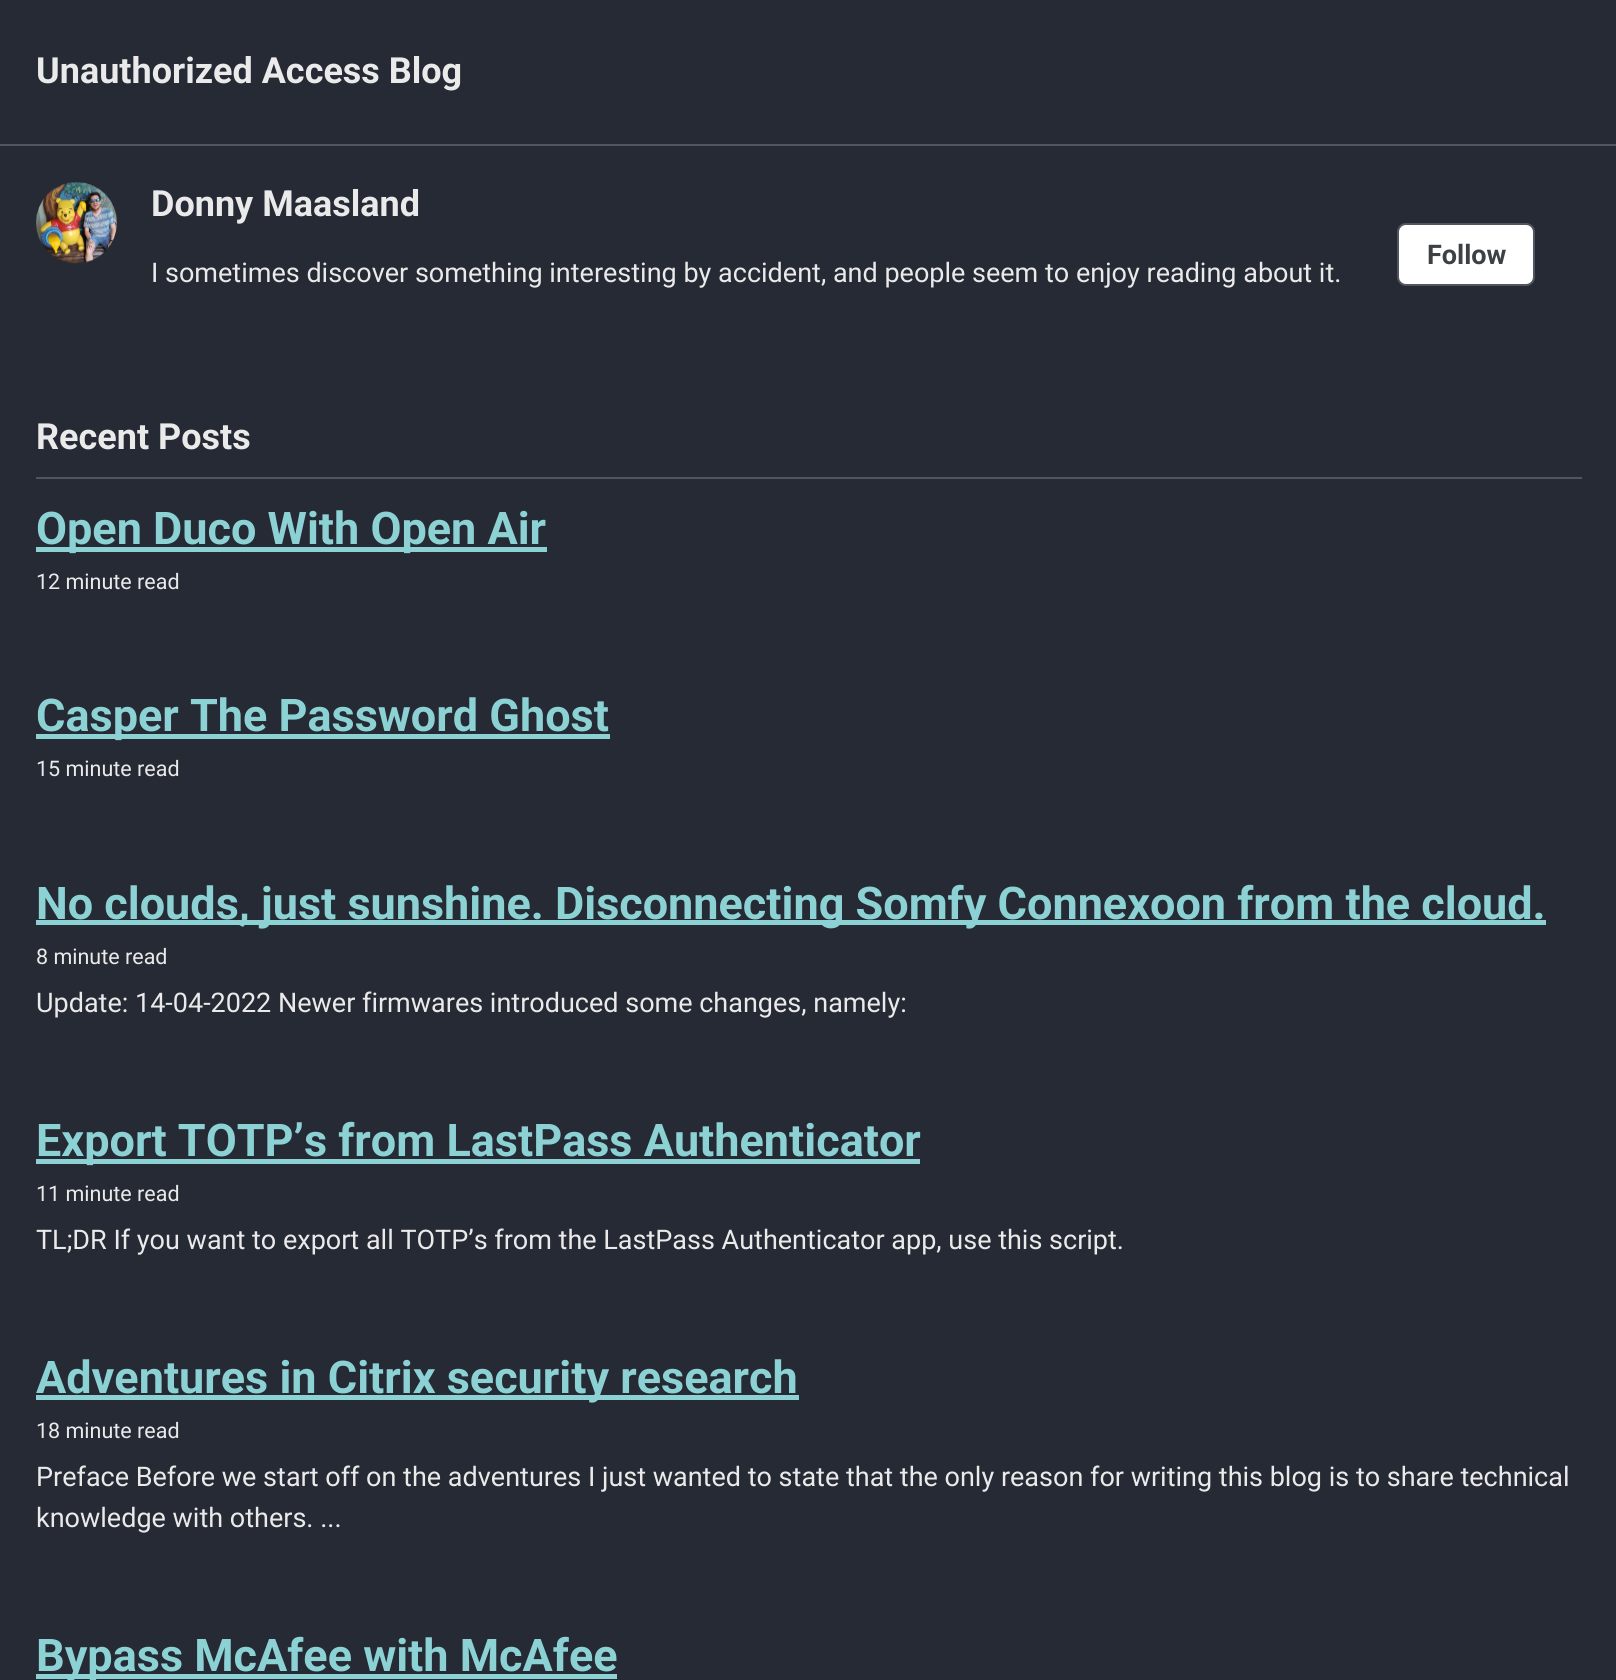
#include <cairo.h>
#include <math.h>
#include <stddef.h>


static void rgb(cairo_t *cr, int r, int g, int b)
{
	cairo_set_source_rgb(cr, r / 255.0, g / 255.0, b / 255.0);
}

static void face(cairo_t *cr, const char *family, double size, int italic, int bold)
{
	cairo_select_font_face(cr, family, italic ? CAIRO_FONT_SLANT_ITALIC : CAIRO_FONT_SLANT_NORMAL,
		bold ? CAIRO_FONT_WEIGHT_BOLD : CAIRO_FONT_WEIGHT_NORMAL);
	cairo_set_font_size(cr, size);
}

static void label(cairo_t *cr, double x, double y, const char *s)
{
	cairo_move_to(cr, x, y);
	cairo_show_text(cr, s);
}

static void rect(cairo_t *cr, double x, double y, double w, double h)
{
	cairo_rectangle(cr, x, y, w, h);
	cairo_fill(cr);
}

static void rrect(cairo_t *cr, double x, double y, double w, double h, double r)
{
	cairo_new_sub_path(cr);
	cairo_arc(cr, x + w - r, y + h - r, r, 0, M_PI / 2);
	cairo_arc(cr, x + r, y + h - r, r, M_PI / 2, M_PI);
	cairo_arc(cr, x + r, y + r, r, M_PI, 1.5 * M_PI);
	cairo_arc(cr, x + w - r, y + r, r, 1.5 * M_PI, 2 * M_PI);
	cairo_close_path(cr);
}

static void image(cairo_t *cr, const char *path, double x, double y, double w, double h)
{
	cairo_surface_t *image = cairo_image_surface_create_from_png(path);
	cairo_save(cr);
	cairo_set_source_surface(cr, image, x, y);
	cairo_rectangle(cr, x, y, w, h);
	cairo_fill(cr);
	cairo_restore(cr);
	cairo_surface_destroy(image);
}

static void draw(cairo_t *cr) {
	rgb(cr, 37, 42, 52);
	cairo_paint(cr);
	rgb(cr, 81, 85, 93);
	rect(cr, 0, 144, 1616, 2);
	face(cr, "Roboto", 36, 0, 1);
	rgb(cr, 234, 234, 234);
	label(cr, 36, 83, "Unauthorized Access Blog");
	image(cr, "image0.png", 36, 182, 81, 82);
	label(cr, 151, 216, "Donny Maasland");
	face(cr, "Roboto", 27, 0, 0);
	label(cr, 151, 282, "I sometimes discover something interesting by accident, and people seem to enjoy reading about it.");
	rgb(cr, 255, 255, 255);
	rrect(cr, 1398, 224, 136, 61, 8);
	cairo_fill_preserve(cr);
	rgb(cr, 81, 85, 93);
	cairo_stroke(cr);
	face(cr, "Roboto", 27, 0, 1);
	rgb(cr, 61, 65, 68);
	label(cr, 1427, 264, "Follow");
	rgb(cr, 81, 85, 93);
	rect(cr, 36, 477, 1546, 2);
	face(cr, "Roboto", 36, 0, 1);
	rgb(cr, 234, 234, 234);
	label(cr, 36, 449, "Recent Posts");
	rgb(cr, 140, 210, 213);
	rect(cr, 36, 547, 511, 5);
	face(cr, "Roboto", 45, 0, 1);
	label(cr, 36, 544, "Open Duco With Open Air");
	face(cr, "Roboto", 21.5, 0, 0);
	rgb(cr, 234, 234, 234);
	label(cr, 36, 589, "12 minute read");
	rgb(cr, 140, 210, 213);
	rect(cr, 36, 734, 574, 5);
	face(cr, "Roboto", 45, 0, 1);
	label(cr, 36, 731, "Casper The Password Ghost");
	face(cr, "Roboto", 21.5, 0, 0);
	rgb(cr, 234, 234, 234);
	label(cr, 36, 776, "15 minute read");
	rgb(cr, 140, 210, 213);
	rect(cr, 36, 920, 1510, 5);
	face(cr, "Roboto", 45, 0, 1);
	label(cr, 36, 919, "No clouds, just sunshine. Disconnecting Somfy Connexoon from the cloud.");
	face(cr, "Roboto", 21.5, 0, 0);
	rgb(cr, 234, 234, 234);
	label(cr, 36, 964, "8 minute read");
	face(cr, "Roboto", 27, 0, 0);
	label(cr, 36, 1012, "Update: 14-04-2022 Newer firmwares introduced some changes, namely:");
	rgb(cr, 140, 210, 213);
	rect(cr, 36, 1159, 884, 5);
	face(cr, "Roboto", 45, 0, 1);
	label(cr, 36, 1156, "Export TOTP’s from LastPass Authenticator");
	face(cr, "Roboto", 21.5, 0, 0);
	rgb(cr, 234, 234, 234);
	label(cr, 36, 1201, "11 minute read");
	face(cr, "Roboto", 27, 0, 0);
	label(cr, 36, 1249, "TL;DR If you want to export all TOTP’s from the LastPass Authenticator app, use this script.");
	rgb(cr, 140, 210, 213);
	rect(cr, 36, 1395, 763, 5);
	face(cr, "Roboto", 45, 0, 1);
	label(cr, 36, 1393, "Adventures in Citrix security research");
	face(cr, "Roboto", 21.5, 0, 0);
	rgb(cr, 234, 234, 234);
	label(cr, 36, 1438, "18 minute read");
	face(cr, "Roboto", 27, 0, 0);
	label(cr, 36, 1486, "Preface Before we start off on the adventures I just wanted to state that the only reason for writing this blog is to share technical");
	label(cr, 36, 1527, "knowledge with others. ...");
	rgb(cr, 140, 210, 213);
	rect(cr, 36, 1674, 581, 5);
	face(cr, "Roboto", 45, 0, 1);
	label(cr, 36, 1671, "Bypass McAfee with McAfee");
}

int main(void) {
	cairo_surface_t *surface = cairo_image_surface_create(CAIRO_FORMAT_RGB24, 1616, 1680);
	cairo_t *cr = cairo_create(surface);
	cairo_font_options_t *options = cairo_font_options_create();
	cairo_font_options_set_hint_metrics(options, CAIRO_HINT_METRICS_OFF);
	cairo_font_options_set_hint_style(options, CAIRO_HINT_STYLE_NONE);
	cairo_set_font_options(cr, options);
	cairo_set_miter_limit(cr, 4);
	draw(cr);
	cairo_surface_write_to_png(surface, "render.png");
	cairo_font_options_destroy(options);
	cairo_destroy(cr);
	cairo_surface_destroy(surface);
	return 0;
}
